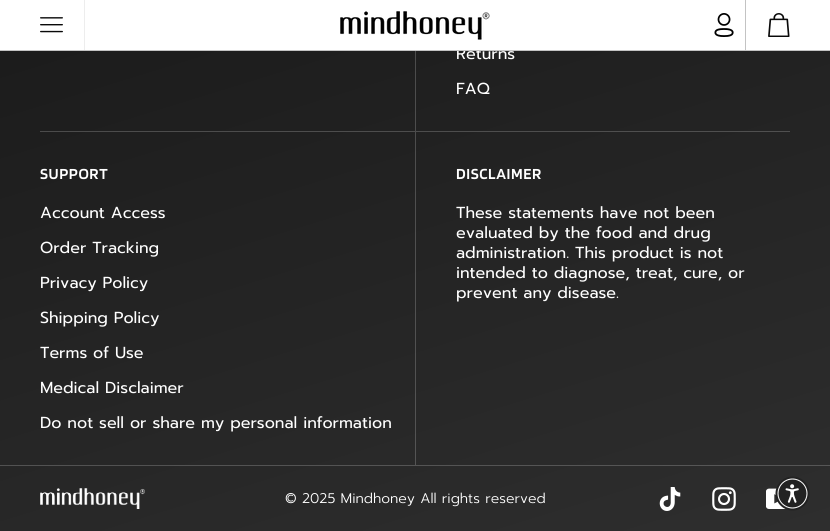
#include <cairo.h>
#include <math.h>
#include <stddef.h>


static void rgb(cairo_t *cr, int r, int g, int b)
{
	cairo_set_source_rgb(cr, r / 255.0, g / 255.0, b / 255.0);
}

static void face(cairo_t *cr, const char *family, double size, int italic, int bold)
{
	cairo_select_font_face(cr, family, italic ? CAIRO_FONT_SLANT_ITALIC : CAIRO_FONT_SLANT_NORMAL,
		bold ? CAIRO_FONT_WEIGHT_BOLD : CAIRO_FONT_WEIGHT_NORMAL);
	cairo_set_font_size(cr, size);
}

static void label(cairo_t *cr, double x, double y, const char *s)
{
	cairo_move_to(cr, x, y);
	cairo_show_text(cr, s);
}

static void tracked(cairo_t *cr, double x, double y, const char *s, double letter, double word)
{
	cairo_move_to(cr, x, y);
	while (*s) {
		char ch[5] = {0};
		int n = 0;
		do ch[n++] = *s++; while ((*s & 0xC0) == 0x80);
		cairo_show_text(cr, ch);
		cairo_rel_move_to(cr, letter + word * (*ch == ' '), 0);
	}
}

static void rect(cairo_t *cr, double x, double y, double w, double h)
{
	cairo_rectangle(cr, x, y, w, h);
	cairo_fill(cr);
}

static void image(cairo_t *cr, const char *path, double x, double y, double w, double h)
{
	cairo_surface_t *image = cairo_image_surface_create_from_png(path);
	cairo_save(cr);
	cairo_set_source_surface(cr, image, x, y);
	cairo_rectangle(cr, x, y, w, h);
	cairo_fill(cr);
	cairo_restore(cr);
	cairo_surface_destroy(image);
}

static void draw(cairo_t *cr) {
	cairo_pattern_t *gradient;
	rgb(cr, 255, 255, 255);
	cairo_paint(cr);
	gradient = cairo_pattern_create_linear(262, -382, 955, 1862);
	cairo_pattern_add_color_stop_rgba(gradient, 0.08, 0.094, 0.094, 0.094, 1);
	cairo_pattern_add_color_stop_rgba(gradient, 1, 0.314, 0.314, 0.314, 1);
	cairo_set_source(cr, gradient);
	cairo_pattern_destroy(gradient);
	rect(cr, 0, 51, 830, 480);
	face(cr, "Prompt", 16, 0, 0);
	rgb(cr, 255, 255, 255);
	label(cr, 456, 59, "Returns");
	rgb(cr, 195, 195, 195);
	rect(cr, 0, 50, 830, 1);
	rgb(cr, 237, 237, 237);
	rect(cr, 84, 0, 1, 50);
	image(cr, "image0.png", 40, 17, 23, 16);
	image(cr, "image1.png", 340, 11, 150, 29);
	rgb(cr, 195, 195, 195);
	rect(cr, 745, 0, 1, 50);
	image(cr, "image2.png", 714, 13, 20, 24);
	image(cr, "image3.png", 768, 13, 22, 24);
	gradient = cairo_pattern_create_linear(262, -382, 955, 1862);
	cairo_pattern_add_color_stop_rgba(gradient, 0.08, 0.275, 0.275, 0.275, 1);
	cairo_pattern_add_color_stop_rgba(gradient, 1, 0.451, 0.451, 0.451, 1);
	cairo_set_source(cr, gradient);
	cairo_pattern_destroy(gradient);
	rect(cr, 40, 131, 375, 1);
	rect(cr, 415, 51, 1, 80);
	rect(cr, 0, 465, 830, 1);
	rgb(cr, 255, 255, 255);
	label(cr, 456, 94, "FAQ");
	face(cr, "Blinker SemiBold", 16, 0, 0);
	tracked(cr, 40, 179, "SUPPORT", 0.6, 0);
	face(cr, "Prompt", 16, 0, 0);
	label(cr, 40, 218, "Account Access");
	label(cr, 40, 253, "Order Tracking");
	label(cr, 40, 288, "Privacy Policy");
	label(cr, 40, 323, "Shipping Policy");
	label(cr, 40, 358, "Terms of Use");
	label(cr, 40, 393, "Medical Disclaimer");
	label(cr, 40, 428, "Do not sell or share my personal information");
	cairo_set_source_rgba(cr, 1, 1, 1, 0.2);
	cairo_new_path(cr);
	cairo_move_to(cr, 415, 131);
	cairo_line_to(cr, 790, 131);
	cairo_line_to(cr, 790, 132);
	cairo_line_to(cr, 416, 132);
	cairo_close_path(cr);
	cairo_fill(cr);
	cairo_new_path(cr);
	cairo_move_to(cr, 415, 465);
	cairo_line_to(cr, 415, 131);
	cairo_line_to(cr, 416, 132);
	cairo_line_to(cr, 416, 465);
	cairo_close_path(cr);
	cairo_fill(cr);
	face(cr, "Blinker SemiBold", 16, 0, 0);
	rgb(cr, 255, 255, 255);
	tracked(cr, 456, 179, "DISCLAIMER", 0.6, 0);
	face(cr, "Prompt", 16, 0, 0);
	label(cr, 456, 218, "These statements have not been");
	label(cr, 456, 238, "evaluated by the food and drug");
	label(cr, 456, 258, "administration. This product is not");
	label(cr, 456, 278, "intended to diagnose, treat, cure, or");
	label(cr, 456, 298, "prevent any disease.");
	image(cr, "image4.png", 40, 488, 105, 21);
	face(cr, "Prompt Light", 14, 0, 0);
	label(cr, 285, 503, "© 2025 Mindhoney All rights reserved");
	image(cr, "image5.png", 659, 487, 22, 24);
	image(cr, "image6.png", 712, 487, 24, 24);
	image(cr, "image7.png", 766, 488, 20, 21);
	rgb(cr, 34, 34, 34);
	cairo_arc(cr, 792.5, 493.5, 17, 0, 2 * M_PI);
	cairo_fill(cr);
	rgb(cr, 255, 255, 255);
	cairo_arc(cr, 792.5, 493.5, 15, 0, 2 * M_PI);
	cairo_fill(cr);
	rgb(cr, 34, 34, 34);
	cairo_arc(cr, 792.5, 493.5, 14, 0, 2 * M_PI);
	cairo_fill(cr);
	image(cr, "image8.png", 785, 484, 14, 19);
}

int main(void) {
	cairo_surface_t *surface = cairo_image_surface_create(CAIRO_FORMAT_RGB24, 830, 531);
	cairo_t *cr = cairo_create(surface);
	cairo_font_options_t *options = cairo_font_options_create();
	cairo_font_options_set_hint_metrics(options, CAIRO_HINT_METRICS_OFF);
	cairo_font_options_set_hint_style(options, CAIRO_HINT_STYLE_NONE);
	cairo_set_font_options(cr, options);
	cairo_set_miter_limit(cr, 4);
	draw(cr);
	cairo_surface_write_to_png(surface, "render.png");
	cairo_font_options_destroy(options);
	cairo_destroy(cr);
	cairo_surface_destroy(surface);
	return 0;
}
